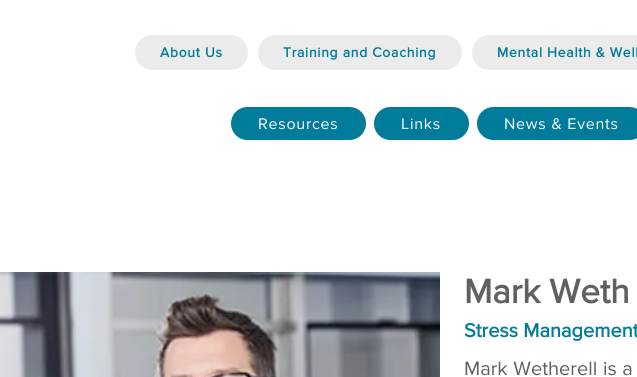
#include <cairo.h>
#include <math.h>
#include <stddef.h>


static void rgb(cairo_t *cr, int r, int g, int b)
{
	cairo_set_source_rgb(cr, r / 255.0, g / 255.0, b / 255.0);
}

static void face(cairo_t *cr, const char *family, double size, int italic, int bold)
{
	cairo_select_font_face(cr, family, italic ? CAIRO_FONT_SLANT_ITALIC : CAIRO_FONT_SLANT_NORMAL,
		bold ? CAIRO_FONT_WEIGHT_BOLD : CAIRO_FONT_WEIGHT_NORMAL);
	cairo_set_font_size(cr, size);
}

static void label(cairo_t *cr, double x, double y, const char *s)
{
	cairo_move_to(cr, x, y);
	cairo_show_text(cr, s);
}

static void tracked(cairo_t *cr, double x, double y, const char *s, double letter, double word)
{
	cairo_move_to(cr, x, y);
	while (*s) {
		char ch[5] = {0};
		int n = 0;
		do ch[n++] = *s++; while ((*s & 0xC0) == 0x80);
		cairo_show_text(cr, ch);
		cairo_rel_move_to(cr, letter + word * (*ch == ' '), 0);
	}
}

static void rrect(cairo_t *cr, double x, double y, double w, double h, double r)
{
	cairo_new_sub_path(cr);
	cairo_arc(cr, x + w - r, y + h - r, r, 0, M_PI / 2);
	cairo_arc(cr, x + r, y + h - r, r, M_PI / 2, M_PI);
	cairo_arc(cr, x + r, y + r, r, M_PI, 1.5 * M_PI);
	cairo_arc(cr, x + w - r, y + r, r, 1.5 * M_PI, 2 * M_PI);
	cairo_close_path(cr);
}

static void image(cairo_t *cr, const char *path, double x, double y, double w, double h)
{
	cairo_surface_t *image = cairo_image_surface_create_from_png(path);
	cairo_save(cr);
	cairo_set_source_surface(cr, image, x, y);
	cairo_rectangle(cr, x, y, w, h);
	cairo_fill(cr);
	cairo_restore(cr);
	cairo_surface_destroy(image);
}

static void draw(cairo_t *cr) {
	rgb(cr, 255, 255, 255);
	cairo_paint(cr);
	rgb(cr, 235, 235, 235);
	rrect(cr, 134.5, 34.5, 114, 36, 18);
	cairo_fill_preserve(cr);
	rgb(cr, 255, 255, 255);
	cairo_set_line_width(cr, 1);
	cairo_stroke(cr);
	face(cr, "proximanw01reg", 14, 0, 1);
	rgb(cr, 0, 123, 154);
	tracked(cr, 160, 57, "About Us", 0.7, 0);
	rgb(cr, 235, 235, 235);
	rrect(cr, 257.5, 34.5, 205, 36, 18);
	cairo_fill_preserve(cr);
	rgb(cr, 255, 255, 255);
	cairo_stroke(cr);
	rgb(cr, 0, 123, 154);
	tracked(cr, 283, 57, "Training and Coaching", 0.7, 0);
	rgb(cr, 235, 235, 235);
	rrect(cr, 471.5, 34.5, 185, 36, 18);
	cairo_fill_preserve(cr);
	rgb(cr, 255, 255, 255);
	cairo_stroke(cr);
	rgb(cr, 0, 123, 154);
	tracked(cr, 497, 57, "Mental Health & Well", 0.7, 0);
	rrect(cr, 231, 107, 135, 33, 16.5);
	cairo_fill(cr);
	face(cr, "proximanw01reg", 16, 0, 0);
	rgb(cr, 255, 255, 255);
	tracked(cr, 258, 129, "Resources", 0.75, 0);
	rgb(cr, 0, 123, 154);
	rrect(cr, 374, 107, 95, 33, 16.5);
	cairo_fill(cr);
	rgb(cr, 255, 255, 255);
	tracked(cr, 401, 129, "Links", 0.75, 0);
	rgb(cr, 0, 123, 154);
	rrect(cr, 477, 107, 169, 33, 16.5);
	cairo_fill(cr);
	rgb(cr, 255, 255, 255);
	tracked(cr, 504, 129, "News & Events", 0.75, 0);
	image(cr, "image0.png", 0, 272, 440, 105);
	face(cr, "proximanw01reg", 35, 0, 1);
	rgb(cr, 96, 96, 96);
	label(cr, 464, 303, "Mark Weth");
	face(cr, "proximanw01reg", 20, 0, 1);
	rgb(cr, 0, 123, 154);
	label(cr, 464, 337, "Stress Management");
	face(cr, "proximanw01reg", 20, 0, 0);
	rgb(cr, 96, 96, 96);
	tracked(cr, 464, 375, "Mark Wetherell is a", 0, 0.5);
}

int main(void) {
	cairo_surface_t *surface = cairo_image_surface_create(CAIRO_FORMAT_RGB24, 637, 377);
	cairo_t *cr = cairo_create(surface);
	cairo_font_options_t *options = cairo_font_options_create();
	cairo_font_options_set_hint_metrics(options, CAIRO_HINT_METRICS_OFF);
	cairo_font_options_set_hint_style(options, CAIRO_HINT_STYLE_NONE);
	cairo_set_font_options(cr, options);
	cairo_set_miter_limit(cr, 4);
	draw(cr);
	cairo_surface_write_to_png(surface, "render.png");
	cairo_font_options_destroy(options);
	cairo_destroy(cr);
	cairo_surface_destroy(surface);
	return 0;
}
